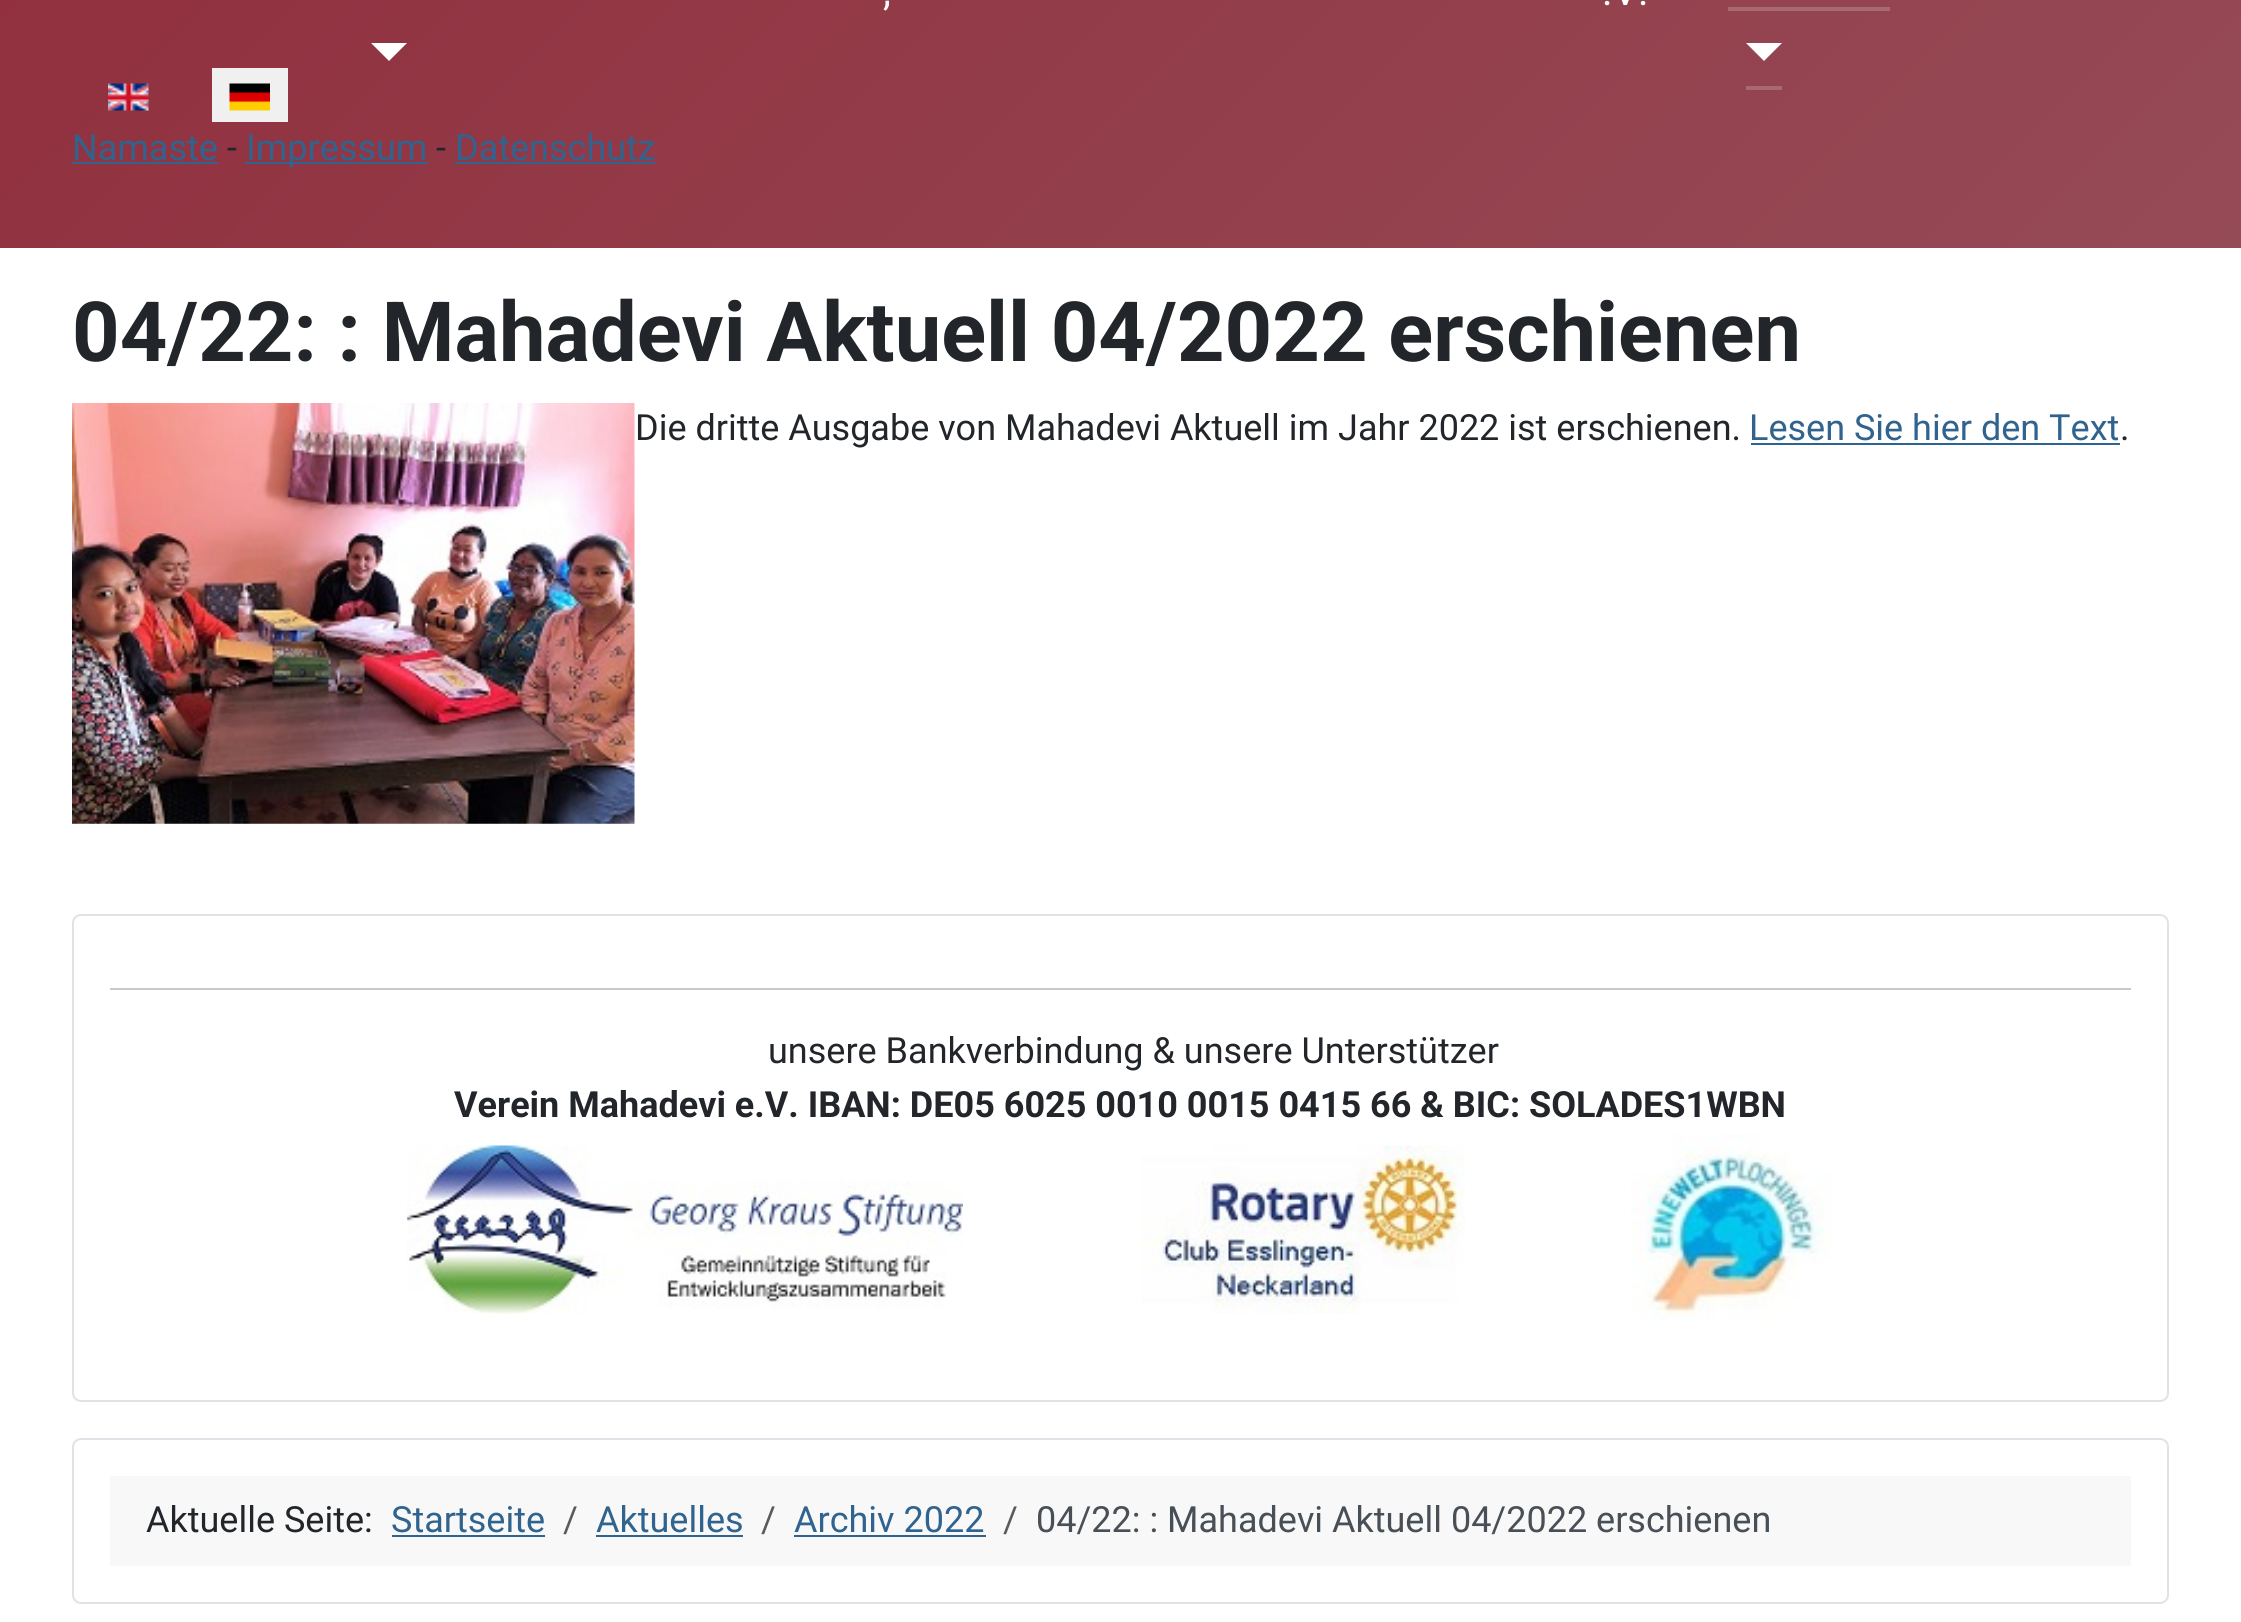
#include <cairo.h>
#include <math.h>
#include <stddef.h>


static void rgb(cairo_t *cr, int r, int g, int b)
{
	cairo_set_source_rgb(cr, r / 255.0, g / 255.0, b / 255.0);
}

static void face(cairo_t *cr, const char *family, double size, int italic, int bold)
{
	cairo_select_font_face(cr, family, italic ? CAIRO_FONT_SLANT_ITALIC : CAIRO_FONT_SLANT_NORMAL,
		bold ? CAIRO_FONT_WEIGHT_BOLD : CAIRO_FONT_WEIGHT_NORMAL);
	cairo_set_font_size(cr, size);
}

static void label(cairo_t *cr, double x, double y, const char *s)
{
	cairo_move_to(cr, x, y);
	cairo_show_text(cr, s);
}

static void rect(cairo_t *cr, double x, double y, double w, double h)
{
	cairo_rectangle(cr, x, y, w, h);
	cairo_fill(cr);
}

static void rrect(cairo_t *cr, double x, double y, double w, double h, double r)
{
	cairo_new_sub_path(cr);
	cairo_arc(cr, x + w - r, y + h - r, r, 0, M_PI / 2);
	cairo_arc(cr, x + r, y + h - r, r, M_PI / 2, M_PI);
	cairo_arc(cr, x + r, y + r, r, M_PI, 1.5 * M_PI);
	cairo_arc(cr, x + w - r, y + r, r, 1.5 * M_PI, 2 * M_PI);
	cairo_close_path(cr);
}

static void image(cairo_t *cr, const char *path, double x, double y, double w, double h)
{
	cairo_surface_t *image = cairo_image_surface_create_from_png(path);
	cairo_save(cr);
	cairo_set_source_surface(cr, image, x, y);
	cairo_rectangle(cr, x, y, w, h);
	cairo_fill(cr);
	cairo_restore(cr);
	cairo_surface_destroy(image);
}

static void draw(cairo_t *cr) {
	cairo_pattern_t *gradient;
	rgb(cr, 255, 255, 255);
	cairo_paint(cr);
	gradient = cairo_pattern_create_linear(379, -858, 1862, 626);
	cairo_pattern_add_color_stop_rgba(gradient, 0, 0.569, 0.169, 0.231, 1);
	cairo_pattern_add_color_stop_rgba(gradient, 1, 0.584, 0.294, 0.337, 1);
	cairo_set_source(cr, gradient);
	cairo_pattern_destroy(gradient);
	rect(cr, 0, 0, 2241, 248);
	face(cr, "Roboto", 40, 0, 0);
	rgb(cr, 255, 255, 255);
	label(cr, 883, 5, ",");
	label(cr, 1602, 5, ".V.");
	cairo_new_path(cr);
	cairo_move_to(cr, 371, 43);
	cairo_line_to(cr, 407, 43);
	cairo_line_to(cr, 389, 61);
	cairo_close_path(cr);
	cairo_fill(cr);
	rgb(cr, 169, 105, 115);
	rect(cr, 1728, 7, 162, 4);
	rgb(cr, 255, 255, 255);
	cairo_new_path(cr);
	cairo_move_to(cr, 1746, 43);
	cairo_line_to(cr, 1782, 43);
	cairo_line_to(cr, 1764, 61);
	cairo_close_path(cr);
	cairo_fill(cr);
	rgb(cr, 169, 105, 115);
	rect(cr, 1746, 86, 36, 4);
	image(cr, "image0.png", 108, 83, 41, 28);
	rgb(cr, 240, 240, 240);
	rect(cr, 212, 68, 76, 54);
	image(cr, "image1.png", 229, 83, 41, 28);
	face(cr, "Roboto", 36, 0, 0);
	rgb(cr, 48, 99, 141);
	label(cr, 72, 160, "Namaste");
	rect(cr, 72, 162, 146, 2);
	rgb(cr, 34, 38, 42);
	label(cr, 227, 160, "-");
	rgb(cr, 48, 99, 141);
	rect(cr, 245, 162, 183, 2);
	label(cr, 246, 160, "Impressum");
	rgb(cr, 34, 38, 42);
	label(cr, 436, 160, "-");
	rgb(cr, 48, 99, 141);
	label(cr, 455, 160, "Datenschutz");
	rect(cr, 455, 162, 200, 2);
	face(cr, "Roboto", 83.1, 0, 1);
	rgb(cr, 34, 38, 42);
	label(cr, 72, 361, "04/22: : Mahadevi Aktuell 04/2022 erschienen");
	image(cr, "image2.png", 72, 403, 563, 421);
	face(cr, "Roboto", 36, 0, 0);
	label(cr, 635, 440, "Die dritte Ausgabe von Mahadevi Aktuell im Jahr 2022 ist erschienen.");
	rgb(cr, 48, 99, 141);
	label(cr, 1749, 440, "Lesen Sie hier den Text");
	rect(cr, 1751, 443, 369, 2);
	rgb(cr, 34, 38, 42);
	label(cr, 2120, 440, ".");
	rrect(cr, 73, 915, 2095, 486, 8);
	rgb(cr, 223, 227, 231);
	cairo_stroke(cr);
	rgb(cr, 200, 201, 202);
	rect(cr, 110, 988, 2021, 2);
	rgb(cr, 34, 38, 42);
	label(cr, 768, 1063, "unsere Bankverbindung & unsere Unterstützer");
	face(cr, "Roboto", 36, 0, 1);
	label(cr, 454, 1117, "Verein Mahadevi e.V. IBAN: DE05 6025 0010 0015 0415 66 & BIC: SOLADES1WBN");
	image(cr, "image3.png", 407, 1145, 556, 169);
	image(cr, "image4.png", 1141, 1145, 324, 169);
	image(cr, "image5.png", 1631, 1134, 201, 187);
	rrect(cr, 73, 1439, 2095, 164, 8);
	rgb(cr, 223, 227, 231);
	cairo_stroke(cr);
	rgb(cr, 248, 248, 248);
	rect(cr, 110, 1476, 2021, 90);
	face(cr, "Roboto", 36, 0, 0);
	rgb(cr, 34, 38, 42);
	label(cr, 146, 1532, "Aktuelle Seite:");
	rgb(cr, 48, 99, 141);
	label(cr, 391, 1532, "Startseite");
	rect(cr, 392, 1535, 153, 2);
	rgb(cr, 88, 91, 94);
	label(cr, 563, 1532, "/");
	rgb(cr, 48, 99, 141);
	label(cr, 596, 1532, "Aktuelles");
	rect(cr, 596, 1535, 147, 2);
	rgb(cr, 88, 91, 94);
	label(cr, 761, 1532, "/");
	rgb(cr, 48, 99, 141);
	label(cr, 794, 1532, "Archiv 2022");
	rect(cr, 794, 1535, 192, 2);
	rgb(cr, 88, 91, 94);
	label(cr, 1003, 1532, "/");
	rgb(cr, 72, 79, 86);
	label(cr, 1036, 1532, "04/22: : Mahadevi Aktuell 04/2022 erschienen");
}

int main(void) {
	cairo_surface_t *surface = cairo_image_surface_create(CAIRO_FORMAT_RGB24, 2241, 1622);
	cairo_t *cr = cairo_create(surface);
	cairo_font_options_t *options = cairo_font_options_create();
	cairo_font_options_set_hint_metrics(options, CAIRO_HINT_METRICS_OFF);
	cairo_font_options_set_hint_style(options, CAIRO_HINT_STYLE_NONE);
	cairo_set_font_options(cr, options);
	cairo_set_miter_limit(cr, 4);
	draw(cr);
	cairo_surface_write_to_png(surface, "render.png");
	cairo_font_options_destroy(options);
	cairo_destroy(cr);
	cairo_surface_destroy(surface);
	return 0;
}
